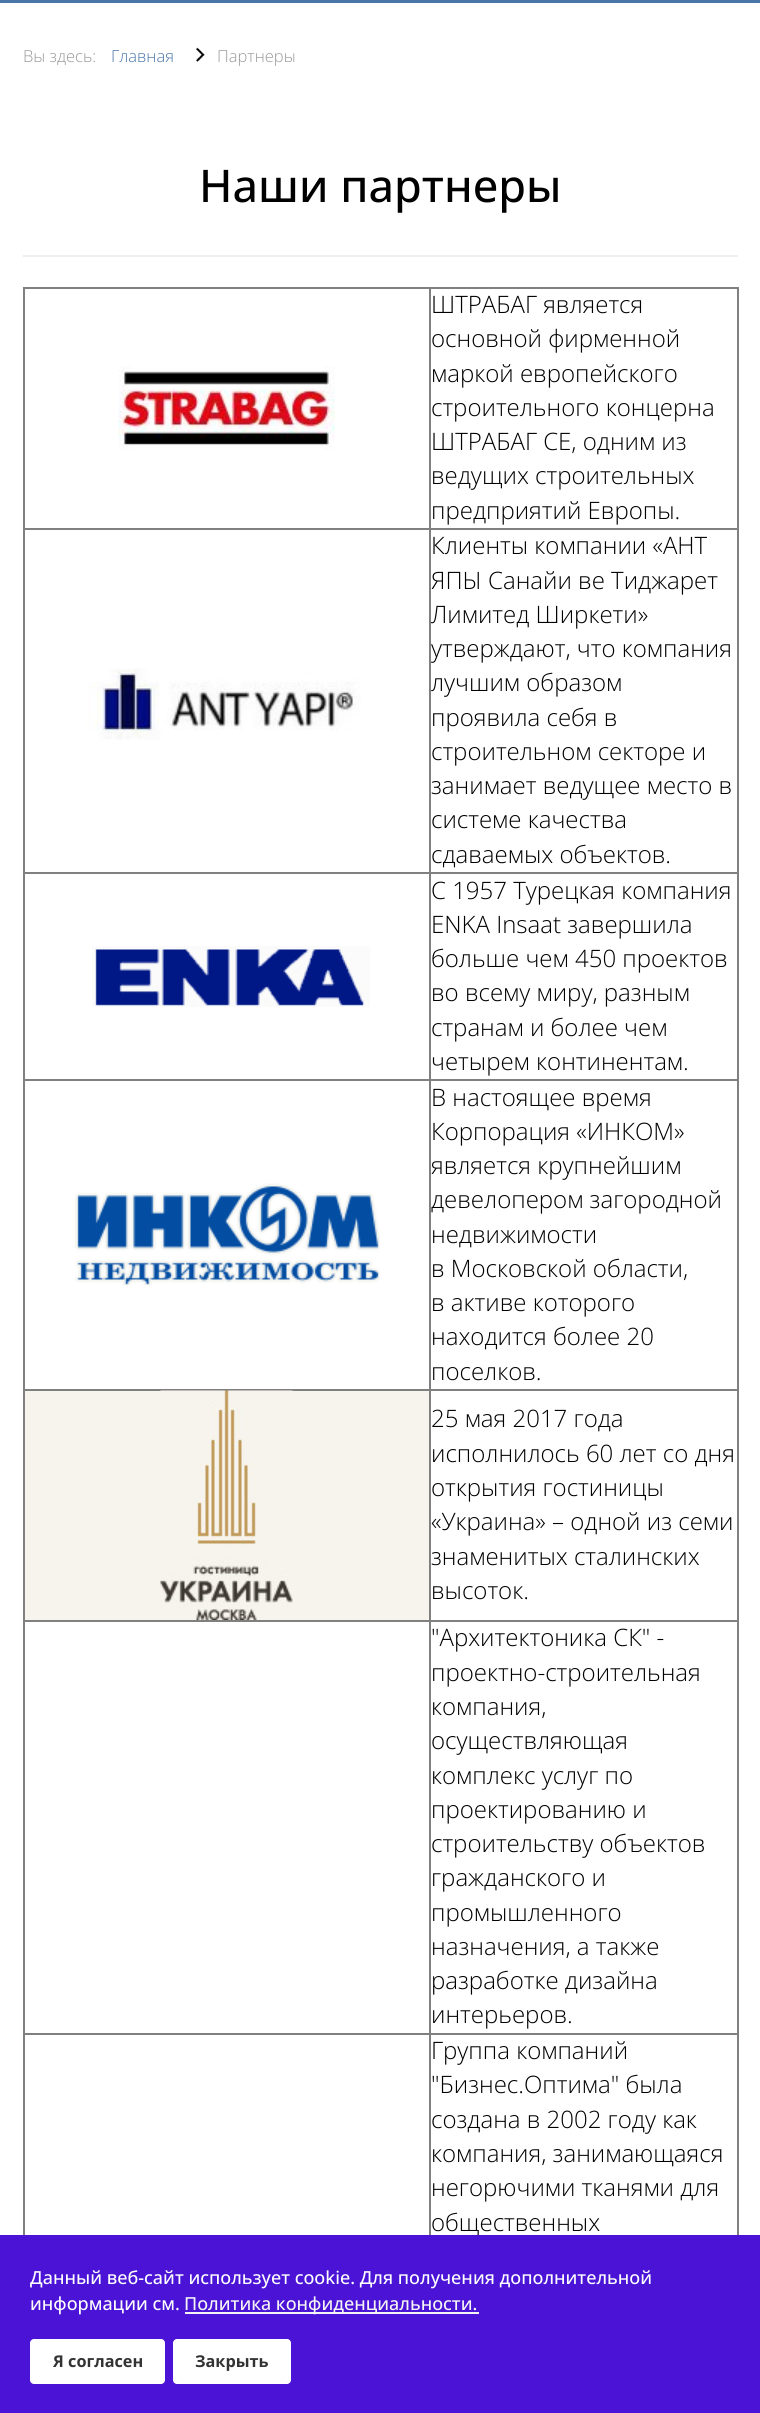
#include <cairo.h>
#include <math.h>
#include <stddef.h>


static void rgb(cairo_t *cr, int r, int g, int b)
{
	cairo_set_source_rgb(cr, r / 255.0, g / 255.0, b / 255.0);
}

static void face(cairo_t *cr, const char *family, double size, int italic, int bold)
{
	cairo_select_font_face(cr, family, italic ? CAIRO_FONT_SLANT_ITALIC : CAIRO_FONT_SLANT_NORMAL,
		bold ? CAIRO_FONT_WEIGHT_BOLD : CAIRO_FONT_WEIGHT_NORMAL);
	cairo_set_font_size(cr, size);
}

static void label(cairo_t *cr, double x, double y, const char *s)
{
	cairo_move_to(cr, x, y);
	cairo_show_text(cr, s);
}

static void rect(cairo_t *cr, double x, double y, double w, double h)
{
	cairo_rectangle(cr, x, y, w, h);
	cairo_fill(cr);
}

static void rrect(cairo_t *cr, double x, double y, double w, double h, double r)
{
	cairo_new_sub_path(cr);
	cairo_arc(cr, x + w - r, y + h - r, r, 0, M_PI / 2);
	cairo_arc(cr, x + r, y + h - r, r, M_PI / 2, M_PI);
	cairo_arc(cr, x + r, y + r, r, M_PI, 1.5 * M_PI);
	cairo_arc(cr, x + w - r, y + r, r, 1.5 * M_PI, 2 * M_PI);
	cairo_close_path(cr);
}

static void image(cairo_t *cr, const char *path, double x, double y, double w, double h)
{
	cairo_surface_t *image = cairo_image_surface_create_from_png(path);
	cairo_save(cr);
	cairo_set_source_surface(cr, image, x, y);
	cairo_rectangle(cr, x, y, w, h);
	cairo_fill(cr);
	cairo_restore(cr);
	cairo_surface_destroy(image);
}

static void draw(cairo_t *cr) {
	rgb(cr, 255, 255, 255);
	cairo_paint(cr);
	rgb(cr, 74, 118, 168);
	rect(cr, 0, 0, 760, 3);
	face(cr, "Open Sans Light", 16.5, 0, 0);
	rgb(cr, 153, 153, 153);
	label(cr, 23, 62, "Вы здесь:");
	image(cr, "image0.png", 196, 47, 9, 15);
	rgb(cr, 74, 118, 168);
	label(cr, 111, 62, "Главная");
	rgb(cr, 153, 153, 153);
	label(cr, 217, 62, "Партнеры");
	rgb(cr, 238, 238, 238);
	rect(cr, 23, 255, 715, 2);
	face(cr, "Open Sans Medium", 45, 0, 0);
	rgb(cr, 0, 0, 0);
	label(cr, 199, 202, "Наши партнеры");
	rgb(cr, 128, 128, 128);
	rect(cr, 23, 287, 715, 2);
	rect(cr, 737, 287, 2, 1948);
	rect(cr, 23, 287, 2, 1948);
	image(cr, "image1.png", 118, 366, 217, 84);
	rect(cr, 429, 528, 309, 2);
	rect(cr, 429, 872, 309, 2);
	rect(cr, 429, 1079, 309, 2);
	rect(cr, 429, 1389, 309, 2);
	rect(cr, 429, 1620, 309, 2);
	rect(cr, 429, 2033, 309, 2);
	rect(cr, 429, 2033, 2, 202);
	rect(cr, 23, 2033, 408, 2);
	rect(cr, 429, 1620, 2, 414);
	rect(cr, 23, 1620, 408, 2);
	rect(cr, 429, 1389, 2, 233);
	rect(cr, 23, 1389, 408, 2);
	rect(cr, 429, 1079, 2, 312);
	rect(cr, 23, 1079, 408, 2);
	rect(cr, 429, 872, 2, 208);
	rect(cr, 23, 872, 408, 2);
	rect(cr, 429, 528, 2, 345);
	rect(cr, 23, 528, 408, 2);
	rect(cr, 429, 287, 2, 243);
	face(cr, "Open Sans Light", 24, 0, 0);
	rgb(cr, 0, 0, 0);
	label(cr, 431, 313, "ШТРАБАГ является");
	label(cr, 431, 347, "основной фирменной");
	label(cr, 431, 382, "маркой европейского");
	label(cr, 431, 416, "строительного концерна");
	label(cr, 431, 450, "ШТРАБАГ СЕ, одним из");
	label(cr, 431, 484, "ведущих строительных");
	label(cr, 431, 519, "предприятий Европы.");
	image(cr, "image2.png", 87, 668, 274, 72);
	label(cr, 431, 554, "Клиенты компании «АНТ");
	label(cr, 431, 589, "ЯПЫ Санайи ве Тиджарет");
	label(cr, 431, 623, "Лимитед Ширкети»");
	label(cr, 431, 657, "утверждают, что компания");
	label(cr, 431, 691, "лучшим образом");
	label(cr, 431, 726, "проявила себя в");
	label(cr, 431, 760, "строительном секторе и");
	label(cr, 431, 794, "занимает ведущее место в");
	label(cr, 431, 828, "системе качества");
	label(cr, 431, 863, "сдаваемых объектов.");
	image(cr, "image3.png", 92, 946, 278, 61);
	label(cr, 431, 899, "С 1957 Турецкая компания");
	label(cr, 431, 933, "ENKA Insaat завершила");
	label(cr, 431, 967, "больше чем 450 проектов");
	label(cr, 431, 1001, "во всему миру, разным");
	label(cr, 431, 1036, "странам и более чем");
	label(cr, 431, 1070, "четырем континентам.");
	image(cr, "image4.png", 75, 1183, 305, 103);
	label(cr, 431, 1106, "В настоящее время");
	label(cr, 431, 1140, "Корпорация «ИНКОМ»");
	label(cr, 431, 1174, "является крупнейшим");
	label(cr, 431, 1208, "девелопером загородной");
	label(cr, 431, 1243, "недвижимости");
	label(cr, 431, 1277, "в Московской области,");
	label(cr, 431, 1311, "в активе которого");
	label(cr, 431, 1345, "находится более 20");
	label(cr, 431, 1380, "поселков.");
	rgb(cr, 247, 244, 237);
	rect(cr, 25, 1391, 404, 229);
	image(cr, "image5.png", 160, 1390, 133, 230);
	rgb(cr, 0, 0, 0);
	label(cr, 431, 1427, "25 мая 2017 года");
	label(cr, 431, 1462, "исполнилось 60 лет со дня");
	label(cr, 431, 1496, "открытия гостиницы");
	label(cr, 431, 1530, "«Украина» – одной из семи");
	label(cr, 431, 1565, "знаменитых сталинских");
	label(cr, 431, 1599, "высоток.");
	label(cr, 431, 1646, "\"Архитектоника СК\" -");
	label(cr, 431, 1681, "проектно-строительная");
	label(cr, 431, 1715, "компания,");
	label(cr, 431, 1749, "осуществляющая");
	label(cr, 431, 1784, "комплекс услуг по");
	label(cr, 431, 1818, "проектированию и");
	label(cr, 431, 1852, "строительству объектов");
	label(cr, 431, 1886, "гражданского и");
	label(cr, 431, 1921, "промышленного");
	label(cr, 431, 1955, "назначения, а также");
	label(cr, 431, 1989, "разработке дизайна");
	label(cr, 431, 2023, "интерьеров.");
	label(cr, 431, 2059, "Группа компаний");
	label(cr, 431, 2093, "\"Бизнес.Оптима\" была");
	label(cr, 431, 2128, "создана в 2002 году как");
	label(cr, 431, 2162, "компания, занимающаяся");
	label(cr, 431, 2196, "негорючими тканями для");
	label(cr, 431, 2231, "общественных");
	rgb(cr, 74, 19, 214);
	rect(cr, 0, 2235, 760, 178);
	face(cr, "Open Sans Medium", 18, 0, 0);
	rgb(cr, 255, 255, 255);
	label(cr, 30, 2284, "Данный веб-сайт использует cookie. Для получения дополнительной");
	label(cr, 30, 2310, "информации см.");
	rgb(cr, 245, 245, 245);
	rect(cr, 185, 2312, 294, 2);
	label(cr, 184, 2310, "Политика конфиденциальности.");
	rgb(cr, 255, 255, 255);
	rrect(cr, 30, 2339, 135, 45, 4);
	cairo_fill(cr);
	face(cr, "Open Sans", 16.25, 0, 1);
	rgb(cr, 51, 51, 51);
	label(cr, 53, 2367, "Я согласен");
	rgb(cr, 255, 255, 255);
	rrect(cr, 173, 2339, 118, 45, 4);
	cairo_fill(cr);
	rgb(cr, 51, 51, 51);
	label(cr, 195, 2367, "Закрыть");
}

int main(void) {
	cairo_surface_t *surface = cairo_image_surface_create(CAIRO_FORMAT_RGB24, 760, 2413);
	cairo_t *cr = cairo_create(surface);
	cairo_font_options_t *options = cairo_font_options_create();
	cairo_font_options_set_hint_metrics(options, CAIRO_HINT_METRICS_OFF);
	cairo_font_options_set_hint_style(options, CAIRO_HINT_STYLE_NONE);
	cairo_set_font_options(cr, options);
	cairo_set_miter_limit(cr, 4);
	draw(cr);
	cairo_surface_write_to_png(surface, "render.png");
	cairo_font_options_destroy(options);
	cairo_destroy(cr);
	cairo_surface_destroy(surface);
	return 0;
}
